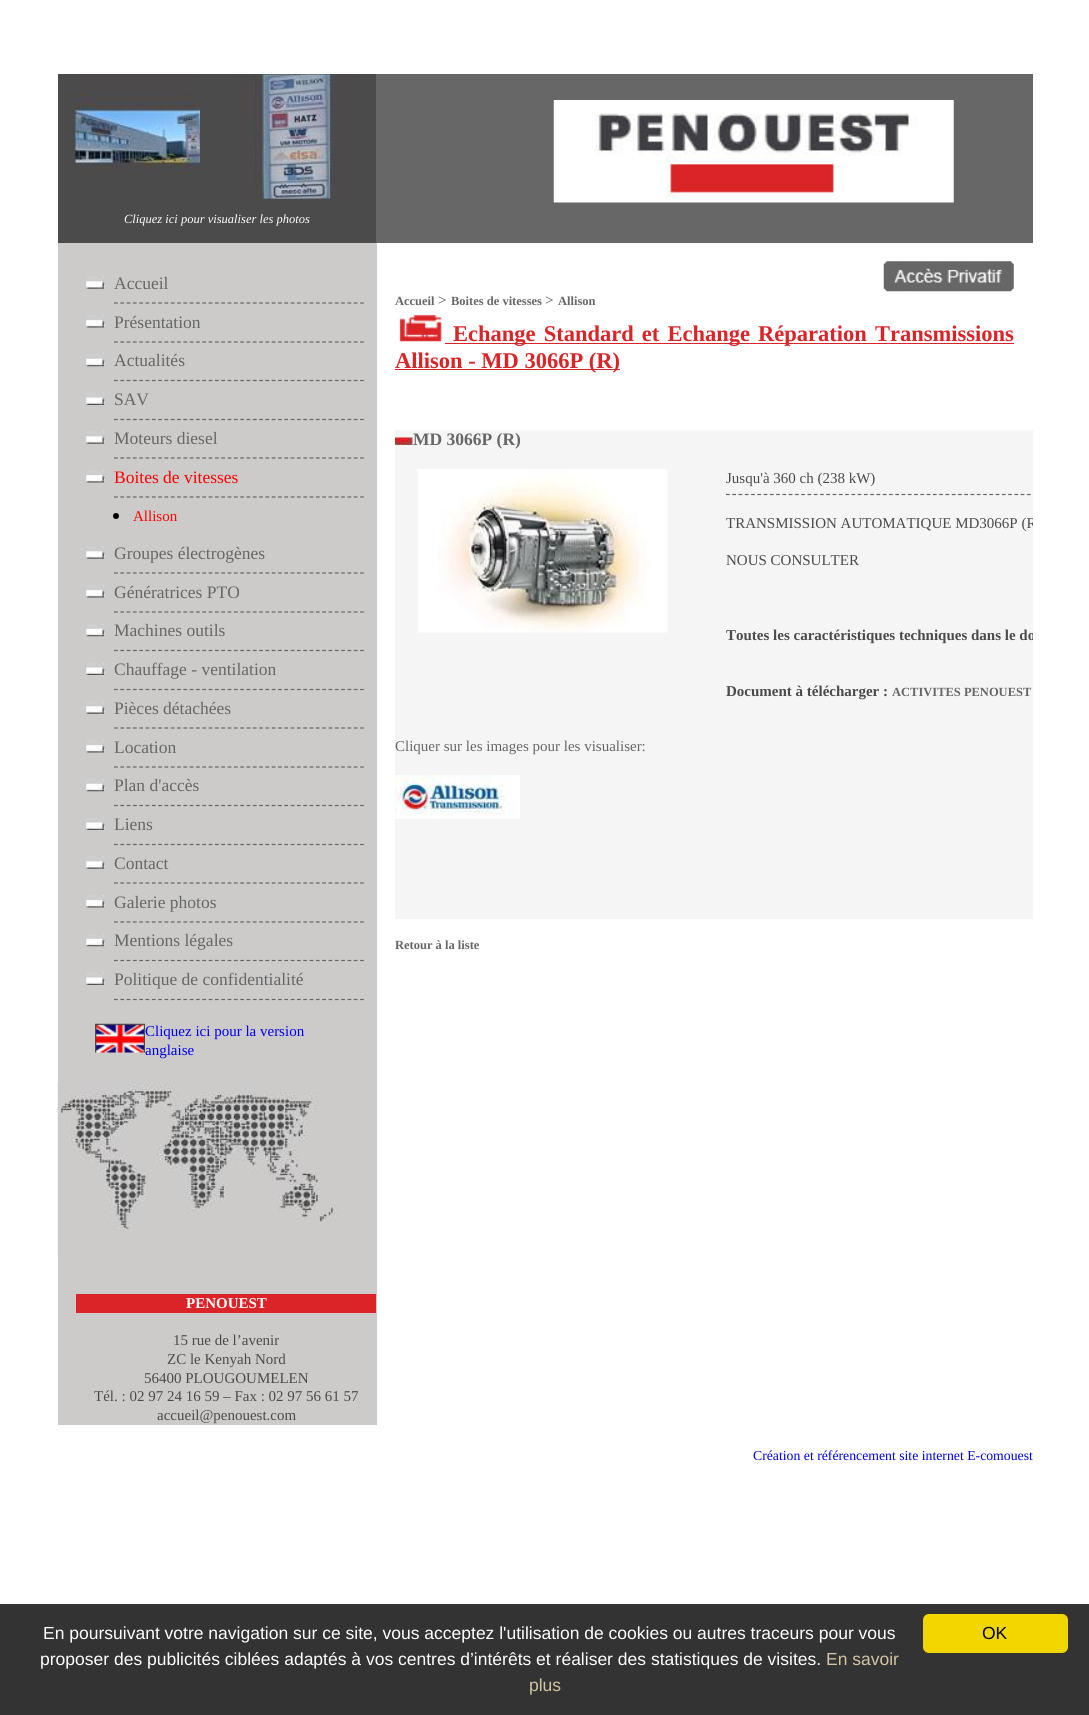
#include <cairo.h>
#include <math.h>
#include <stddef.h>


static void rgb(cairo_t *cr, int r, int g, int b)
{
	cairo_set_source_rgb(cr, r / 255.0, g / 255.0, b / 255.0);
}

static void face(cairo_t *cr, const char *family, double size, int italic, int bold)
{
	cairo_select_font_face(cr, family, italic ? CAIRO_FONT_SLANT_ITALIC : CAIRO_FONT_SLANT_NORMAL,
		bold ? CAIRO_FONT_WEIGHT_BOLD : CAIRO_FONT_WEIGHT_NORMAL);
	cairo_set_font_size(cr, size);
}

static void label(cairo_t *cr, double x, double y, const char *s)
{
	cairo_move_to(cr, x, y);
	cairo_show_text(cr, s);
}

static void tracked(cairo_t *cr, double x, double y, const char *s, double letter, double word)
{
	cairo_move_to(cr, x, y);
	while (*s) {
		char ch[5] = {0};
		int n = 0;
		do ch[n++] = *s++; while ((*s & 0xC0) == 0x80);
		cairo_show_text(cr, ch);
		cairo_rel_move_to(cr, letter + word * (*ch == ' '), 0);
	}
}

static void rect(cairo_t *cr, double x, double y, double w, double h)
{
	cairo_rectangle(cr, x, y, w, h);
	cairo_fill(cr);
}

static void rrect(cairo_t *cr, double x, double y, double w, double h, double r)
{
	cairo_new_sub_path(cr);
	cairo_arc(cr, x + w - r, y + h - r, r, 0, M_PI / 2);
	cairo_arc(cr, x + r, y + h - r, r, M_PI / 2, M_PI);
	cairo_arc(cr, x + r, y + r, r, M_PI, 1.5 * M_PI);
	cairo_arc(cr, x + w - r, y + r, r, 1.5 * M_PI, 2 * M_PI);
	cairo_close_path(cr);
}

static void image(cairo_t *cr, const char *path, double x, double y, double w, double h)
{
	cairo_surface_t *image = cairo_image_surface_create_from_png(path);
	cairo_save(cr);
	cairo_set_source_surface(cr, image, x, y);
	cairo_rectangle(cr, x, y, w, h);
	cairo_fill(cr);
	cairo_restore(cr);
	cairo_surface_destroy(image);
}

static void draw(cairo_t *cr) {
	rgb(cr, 255, 255, 255);
	cairo_paint(cr);
	rgb(cr, 103, 103, 103);
	rect(cr, 376, 74, 657, 169);
	image(cr, "image0.png", 553, 100, 401, 103);
	rgb(cr, 204, 203, 201);
	rect(cr, 376, 243, 1, 1182);
	rgb(cr, 204, 203, 202);
	rect(cr, 58, 243, 318, 1182);
	rgb(cr, 76, 75, 75);
	rect(cr, 58, 74, 318, 169);
	image(cr, "image1.png", 75, 74, 125, 101);
	image(cr, "image2.png", 234, 74, 125, 125);
	face(cr, "Liberation Serif", 12.5, 1, 0);
	rgb(cr, 255, 255, 255);
	label(cr, 124, 223, "Cliquez ici pour visualiser les photos");
	cairo_new_path(cr);
	cairo_move_to(cr, 114, 303);
	cairo_line_to(cr, 364, 303);
	rgb(cr, 103, 103, 103);
	cairo_set_line_width(cr, 1.2);
	cairo_set_dash(cr, (double[]){3.75, 2.56}, 2, 0);
	cairo_stroke(cr);
	image(cr, "image3.png", 86, 276, 19, 13);
	face(cr, "Liberation Serif", 17.5, 0, 0);
	label(cr, 114, 289, "Accueil");
	cairo_new_path(cr);
	cairo_move_to(cr, 114, 342);
	cairo_line_to(cr, 364, 342);
	cairo_stroke(cr);
	image(cr, "image4.png", 86, 315, 19, 13);
	label(cr, 114, 328, "Présentation");
	cairo_new_path(cr);
	cairo_move_to(cr, 114, 380.5);
	cairo_line_to(cr, 364, 380.5);
	cairo_stroke(cr);
	image(cr, "image5.png", 86, 354, 19, 13);
	label(cr, 114, 366, "Actualités");
	cairo_new_path(cr);
	cairo_move_to(cr, 114, 419.5);
	cairo_line_to(cr, 364, 419.5);
	cairo_stroke(cr);
	image(cr, "image6.png", 86, 392, 19, 13);
	label(cr, 114, 405, "SAV");
	cairo_new_path(cr);
	cairo_move_to(cr, 114, 458);
	cairo_line_to(cr, 364, 458);
	cairo_stroke(cr);
	image(cr, "image3.png", 86, 431, 19, 13);
	label(cr, 114, 444, "Moteurs diesel");
	cairo_new_path(cr);
	cairo_move_to(cr, 114, 497);
	cairo_line_to(cr, 364, 497);
	cairo_stroke(cr);
	image(cr, "image4.png", 86, 470, 19, 13);
	rgb(cr, 255, 0, 0);
	label(cr, 114, 483, "Boites de vitesses");
	rgb(cr, 0, 0, 0);
	cairo_new_path(cr);
	cairo_arc(cr, 116, 516, 3, 0, 2 * M_PI);
	cairo_fill(cr);
	face(cr, "Liberation Serif", 15, 0, 0);
	rgb(cr, 255, 0, 0);
	label(cr, 133, 521, "Allison");
	cairo_new_path(cr);
	cairo_move_to(cr, 114, 573);
	cairo_line_to(cr, 364, 573);
	rgb(cr, 103, 103, 103);
	cairo_stroke(cr);
	image(cr, "image3.png", 86, 546, 19, 13);
	face(cr, "Liberation Serif", 17.5, 0, 0);
	label(cr, 114, 559, "Groupes électrogènes");
	cairo_new_path(cr);
	cairo_move_to(cr, 114, 612);
	cairo_line_to(cr, 364, 612);
	cairo_stroke(cr);
	image(cr, "image7.png", 86, 585, 19, 13);
	label(cr, 114, 598, "Génératrices PTO");
	cairo_new_path(cr);
	cairo_move_to(cr, 114, 650.5);
	cairo_line_to(cr, 364, 650.5);
	cairo_stroke(cr);
	image(cr, "image5.png", 86, 624, 19, 13);
	label(cr, 114, 636, "Machines outils");
	cairo_new_path(cr);
	cairo_move_to(cr, 114, 689.5);
	cairo_line_to(cr, 364, 689.5);
	cairo_stroke(cr);
	image(cr, "image6.png", 86, 662, 19, 13);
	label(cr, 114, 675, "Chauffage - ventilation");
	cairo_new_path(cr);
	cairo_move_to(cr, 114, 728);
	cairo_line_to(cr, 364, 728);
	cairo_stroke(cr);
	image(cr, "image3.png", 86, 701, 19, 13);
	label(cr, 114, 714, "Pièces détachées");
	cairo_new_path(cr);
	cairo_move_to(cr, 114, 767);
	cairo_line_to(cr, 364, 767);
	cairo_stroke(cr);
	image(cr, "image4.png", 86, 740, 19, 13);
	label(cr, 114, 753, "Location");
	cairo_new_path(cr);
	cairo_move_to(cr, 114, 805.5);
	cairo_line_to(cr, 364, 805.5);
	cairo_stroke(cr);
	image(cr, "image8.png", 86, 779, 19, 13);
	label(cr, 114, 791, "Plan d'accès");
	cairo_new_path(cr);
	cairo_move_to(cr, 114, 844.5);
	cairo_line_to(cr, 364, 844.5);
	cairo_stroke(cr);
	image(cr, "image6.png", 86, 817, 19, 13);
	label(cr, 114, 830, "Liens");
	cairo_new_path(cr);
	cairo_move_to(cr, 114, 883);
	cairo_line_to(cr, 364, 883);
	cairo_stroke(cr);
	image(cr, "image3.png", 86, 856, 19, 13);
	label(cr, 114, 869, "Contact");
	cairo_new_path(cr);
	cairo_move_to(cr, 114, 922);
	cairo_line_to(cr, 364, 922);
	cairo_stroke(cr);
	image(cr, "image4.png", 86, 895, 19, 13);
	label(cr, 114, 908, "Galerie photos");
	cairo_new_path(cr);
	cairo_move_to(cr, 114, 960.5);
	cairo_line_to(cr, 364, 960.5);
	cairo_stroke(cr);
	image(cr, "image5.png", 86, 934, 19, 13);
	label(cr, 114, 946, "Mentions légales");
	cairo_new_path(cr);
	cairo_move_to(cr, 114, 999.5);
	cairo_line_to(cr, 364, 999.5);
	cairo_stroke(cr);
	image(cr, "image6.png", 86, 972, 19, 13);
	label(cr, 114, 985, "Politique de confidentialité");
	image(cr, "image9.png", 95, 1023, 50, 30);
	face(cr, "Liberation Serif", 15, 0, 0);
	rgb(cr, 0, 0, 238);
	label(cr, 145, 1036, "Cliquez ici pour la version");
	label(cr, 145, 1055, "anglaise");
	image(cr, "image10.png", 57, 1082, 281, 174);
	rgb(cr, 218, 36, 39);
	rect(cr, 76, 1294, 300, 19);
	face(cr, "Liberation Serif", 15, 0, 1);
	rgb(cr, 255, 255, 255);
	label(cr, 186, 1308, "PENOUEST");
	face(cr, "Liberation Serif", 15, 0, 0);
	rgb(cr, 76, 75, 75);
	label(cr, 173, 1345, "15 rue de l’avenir");
	label(cr, 167, 1364, "ZC le Kenyah Nord");
	label(cr, 144, 1383, "56400 PLOUGOUMELEN");
	label(cr, 94, 1401, "Tél. : 02 97 24 16 59 – Fax : 02 97 56 61 57");
	label(cr, 157, 1420, "accueil@penouest.com");
	image(cr, "image11.png", 883, 261, 131, 31);
	face(cr, "Liberation Serif", 12.5, 0, 1);
	rgb(cr, 103, 103, 103);
	label(cr, 395, 305, "Accueil");
	face(cr, "Liberation Serif", 15, 0, 0);
	rgb(cr, 76, 75, 75);
	label(cr, 438, 305, ">");
	face(cr, "Liberation Serif", 12.5, 0, 1);
	rgb(cr, 103, 103, 103);
	label(cr, 451, 305, "Boites de vitesses");
	face(cr, "Liberation Serif", 15, 0, 0);
	rgb(cr, 76, 75, 75);
	label(cr, 545, 305, ">");
	face(cr, "Liberation Serif", 12.5, 0, 1);
	rgb(cr, 103, 103, 103);
	label(cr, 558, 305, "Allison");
	image(cr, "image12.png", 395, 310, 50, 32);
	rgb(cr, 218, 36, 39);
	rect(cr, 445, 343, 569, 1);
	face(cr, "Liberation Serif", 22.5, 0, 1);
	tracked(cr, 453, 341, "Echange Standard et Echange Réparation Transmissions", 0, 2.5);
	rect(cr, 395, 369, 225, 1);
	label(cr, 395, 368, "Allison - MD 3066P (R)");
	rgb(cr, 245, 245, 245);
	rect(cr, 395, 430, 638, 489);
	image(cr, "image13.png", 395, 437, 18, 8);
	face(cr, "Liberation Serif", 17.5, 0, 1);
	rgb(cr, 103, 103, 103);
	label(cr, 413, 445, "MD 3066P (R)");
	cairo_save(cr);
	cairo_rectangle(cr, 58, 74, 975, 1351);
	cairo_clip(cr);
	cairo_new_path(cr);
	cairo_move_to(cr, 726, 494.5);
	cairo_line_to(cr, 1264, 494.5);
	cairo_set_dash(cr, (double[]){3.75, 2.52}, 2, 0);
	cairo_stroke(cr);
	cairo_restore(cr);
	face(cr, "Liberation Serif", 15, 0, 0);
	rgb(cr, 76, 75, 75);
	label(cr, 726, 483, "Jusqu'à 360 ch (238 kW)");
	cairo_save(cr);
	cairo_rectangle(cr, 58, 74, 975, 1351);
	cairo_clip(cr);
	label(cr, 726, 528, "TRANSMISSION AUTOMATIQUE MD3066P (R");
	cairo_restore(cr);
	label(cr, 726, 565, "NOUS CONSULTER");
	cairo_save(cr);
	cairo_rectangle(cr, 58, 74, 975, 1351);
	cairo_clip(cr);
	face(cr, "Liberation Serif", 15, 0, 1);
	label(cr, 726, 640, "Toutes les caractéristiques techniques dans le do");
	cairo_restore(cr);
	face(cr, "Liberation Serif", 15, 0, 1);
	label(cr, 726, 696, "Document à télécharger :");
	face(cr, "Liberation Serif", 12.5, 0, 1);
	rgb(cr, 103, 103, 103);
	label(cr, 892, 696, "ACTIVITES PENOUEST");
	image(cr, "image14.png", 417, 469, 251, 164);
	face(cr, "Liberation Serif", 15, 0, 0);
	label(cr, 395, 751, "Cliquer sur les images pour les visualiser:");
	image(cr, "image15.png", 395, 775, 125, 44);
	face(cr, "Liberation Serif", 12.5, 0, 1);
	label(cr, 395, 949, "Retour à la liste");
	face(cr, "Liberation Serif", 13.75, 0, 0);
	rgb(cr, 0, 0, 238);
	label(cr, 753, 1460, "Création et référencement site internet E-comouest");
	rgb(cr, 51, 51, 51);
	rect(cr, 0, 1604, 1089, 111);
	face(cr, "Liberation Sans", 17.5, 0, 0);
	rgb(cr, 255, 255, 255);
	label(cr, 43, 1639, "En poursuivant votre navigation sur ce site, vous acceptez l'utilisation de cookies ou autres traceurs pour vous");
	label(cr, 40, 1665, "proposer des publicités ciblées adaptés à vos centres d’intérêts et réaliser des statistiques de visites.");
	rgb(cr, 210, 197, 163);
	label(cr, 826, 1665, "En savoir");
	label(cr, 529, 1691, "plus");
	rgb(cr, 241, 214, 0);
	rrect(cr, 923, 1614, 145, 39, 6);
	cairo_fill(cr);
	rgb(cr, 0, 0, 0);
	label(cr, 982, 1639, "OK");
}

int main(void) {
	cairo_surface_t *surface = cairo_image_surface_create(CAIRO_FORMAT_RGB24, 1089, 1715);
	cairo_t *cr = cairo_create(surface);
	cairo_font_options_t *options = cairo_font_options_create();
	cairo_font_options_set_hint_metrics(options, CAIRO_HINT_METRICS_OFF);
	cairo_font_options_set_hint_style(options, CAIRO_HINT_STYLE_NONE);
	cairo_set_font_options(cr, options);
	cairo_set_miter_limit(cr, 4);
	draw(cr);
	cairo_surface_write_to_png(surface, "render.png");
	cairo_font_options_destroy(options);
	cairo_destroy(cr);
	cairo_surface_destroy(surface);
	return 0;
}
